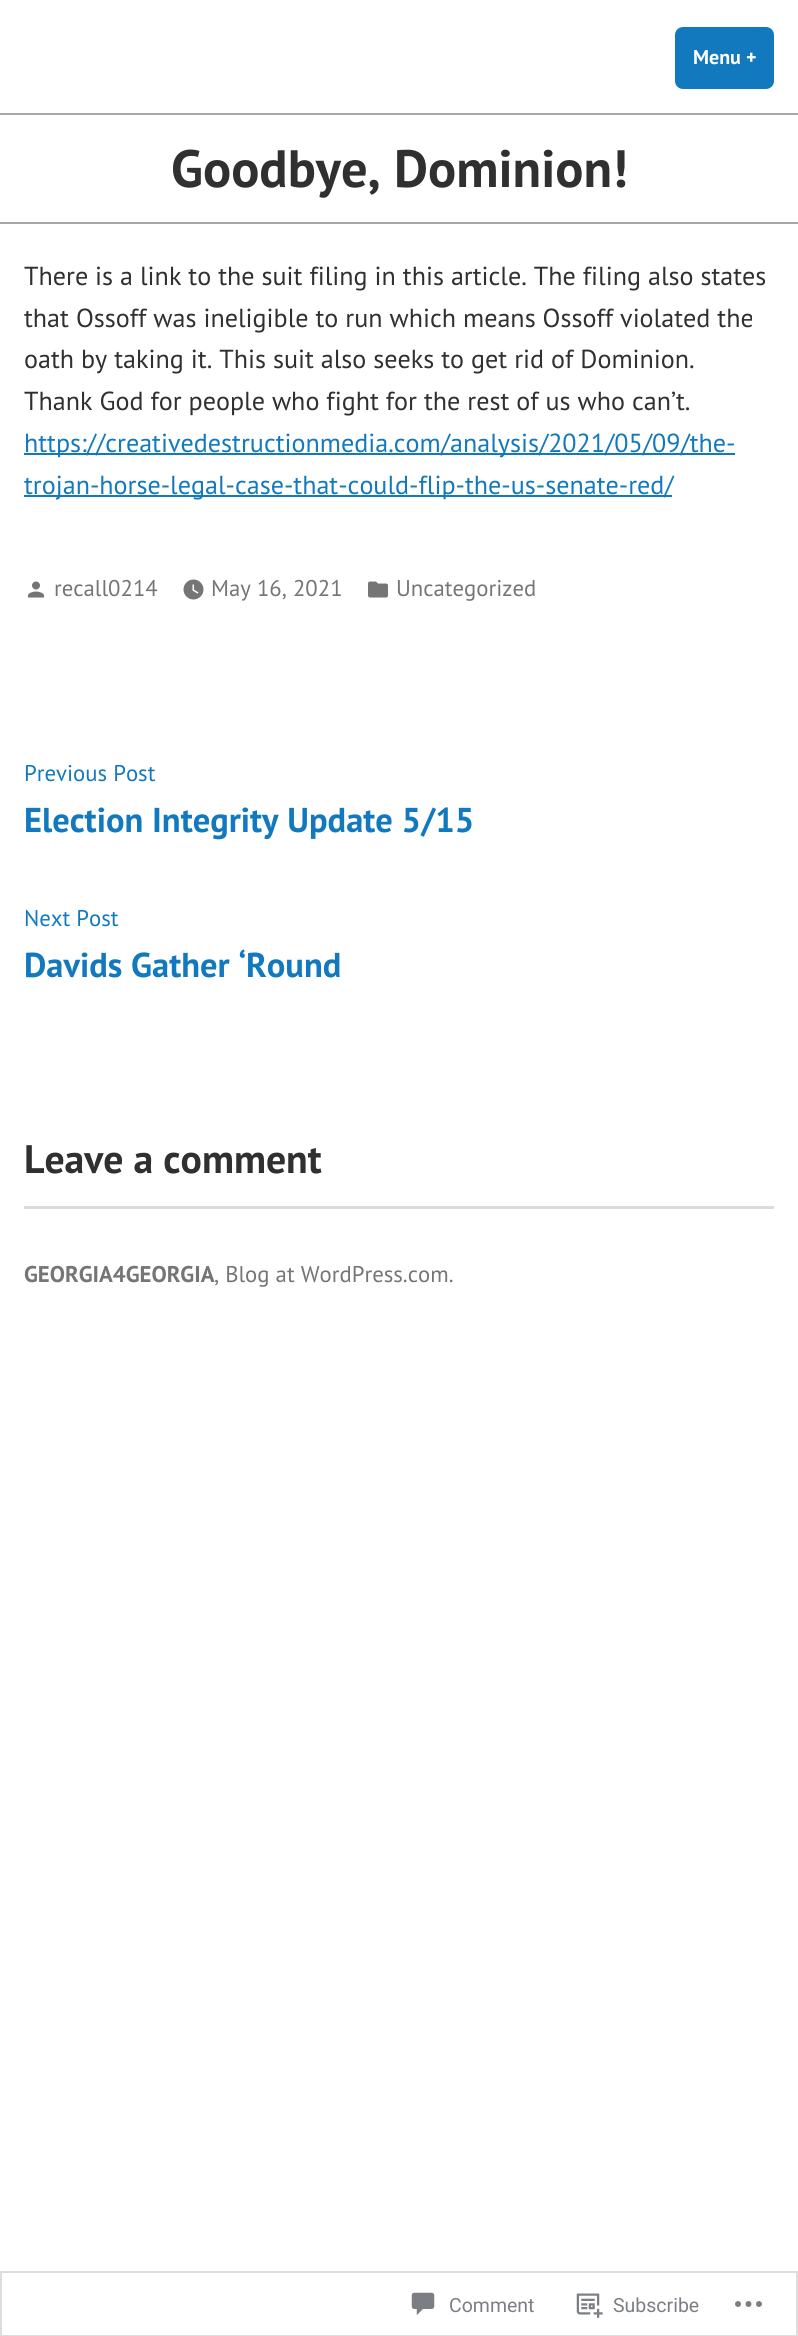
#include <cairo.h>
#include <math.h>
#include <stddef.h>


static void rgb(cairo_t *cr, int r, int g, int b)
{
	cairo_set_source_rgb(cr, r / 255.0, g / 255.0, b / 255.0);
}

static void face(cairo_t *cr, const char *family, double size, int italic, int bold)
{
	cairo_select_font_face(cr, family, italic ? CAIRO_FONT_SLANT_ITALIC : CAIRO_FONT_SLANT_NORMAL,
		bold ? CAIRO_FONT_WEIGHT_BOLD : CAIRO_FONT_WEIGHT_NORMAL);
	cairo_set_font_size(cr, size);
}

static void label(cairo_t *cr, double x, double y, const char *s)
{
	cairo_move_to(cr, x, y);
	cairo_show_text(cr, s);
}

static void rect(cairo_t *cr, double x, double y, double w, double h)
{
	cairo_rectangle(cr, x, y, w, h);
	cairo_fill(cr);
}

static void rrect(cairo_t *cr, double x, double y, double w, double h, double r)
{
	cairo_new_sub_path(cr);
	cairo_arc(cr, x + w - r, y + h - r, r, 0, M_PI / 2);
	cairo_arc(cr, x + r, y + h - r, r, M_PI / 2, M_PI);
	cairo_arc(cr, x + r, y + r, r, M_PI, 1.5 * M_PI);
	cairo_arc(cr, x + w - r, y + r, r, 1.5 * M_PI, 2 * M_PI);
	cairo_close_path(cr);
}

static void image(cairo_t *cr, const char *path, double x, double y, double w, double h)
{
	cairo_surface_t *image = cairo_image_surface_create_from_png(path);
	cairo_save(cr);
	cairo_set_source_surface(cr, image, x, y);
	cairo_rectangle(cr, x, y, w, h);
	cairo_fill(cr);
	cairo_restore(cr);
	cairo_surface_destroy(image);
}

static void draw(cairo_t *cr) {
	rgb(cr, 255, 255, 255);
	cairo_paint(cr);
	rgb(cr, 18, 121, 190);
	rrect(cr, 675, 27, 99, 62, 8);
	cairo_fill(cr);
	face(cr, "PT Sans", 20, 0, 1);
	rgb(cr, 255, 255, 255);
	label(cr, 693, 64, "Menu +");
	rgb(cr, 165, 165, 165);
	rect(cr, 0, 113, 798, 2);
	face(cr, "PT Sans", 52.5, 0, 1);
	rgb(cr, 48, 48, 48);
	label(cr, 171, 187, "Goodbye, Dominion!");
	rgb(cr, 165, 165, 165);
	rect(cr, 0, 222, 798, 2);
	face(cr, "PT Sans", 26.1, 0, 0);
	rgb(cr, 48, 48, 48);
	label(cr, 24, 285, "There is a link to the suit filing in this article. The filing also states");
	label(cr, 24, 327, "that Ossoff was ineligible to run which means Ossoff violated the");
	label(cr, 24, 368, "oath by taking it. This suit also seeks to get rid of Dominion.");
	label(cr, 24, 410, "Thank God for people who fight for the rest of us who can’t.");
	rgb(cr, 18, 121, 190);
	rect(cr, 24, 453, 711, 2);
	label(cr, 24, 452, "https://creativedestructionmedia.com/analysis/2021/05/09/the-");
	rect(cr, 24, 495, 648, 2);
	label(cr, 24, 494, "trojan-horse-legal-case-that-could-flip-the-us-senate-red/");
	image(cr, "image0.png", 28, 581, 16, 17);
	face(cr, "PT Sans", 22.75, 0, 0);
	rgb(cr, 117, 117, 117);
	label(cr, 54, 596, "recall0214");
	image(cr, "image1.png", 183, 579, 21, 21);
	label(cr, 211, 596, "May 16, 2021");
	image(cr, "image2.png", 368, 581, 20, 17);
	label(cr, 396, 596, "Uncategorized");
	rgb(cr, 18, 121, 190);
	label(cr, 24, 781, "Previous Post");
	face(cr, "PT Sans", 34.5, 0, 1);
	label(cr, 24, 832, "Election Integrity Update 5/15");
	face(cr, "PT Sans", 22.75, 0, 0);
	label(cr, 24, 926, "Next Post");
	face(cr, "PT Sans", 34.5, 0, 1);
	label(cr, 24, 977, "Davids Gather ‘Round");
	face(cr, "PT Sans", 39.75, 0, 1);
	rgb(cr, 48, 48, 48);
	label(cr, 24, 1173, "Leave a comment");
	rgb(cr, 220, 220, 222);
	rect(cr, 24, 1206, 750, 3);
	face(cr, "PT Sans", 22.75, 0, 1);
	rgb(cr, 117, 117, 117);
	label(cr, 24, 1282, "GEORGIA4GEORGIA");
	face(cr, "PT Sans", 22.75, 0, 0);
	label(cr, 214, 1282, ", Blog at WordPress.com.");
	cairo_rectangle(cr, 1, 2272, 796, 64);
	rgb(cr, 221, 221, 223);
	cairo_stroke(cr);
	image(cr, "image3.png", 411, 2292, 24, 24);
	face(cr, "Roboto", 19.5, 0, 0);
	rgb(cr, 123, 127, 133);
	label(cr, 449, 2312, "Comment");
	image(cr, "image4.png", 576, 2293, 27, 25);
	label(cr, 613, 2312, "Subscribe");
	image(cr, "image5.png", 735, 2301, 27, 6);
}

int main(void) {
	cairo_surface_t *surface = cairo_image_surface_create(CAIRO_FORMAT_RGB24, 798, 2336);
	cairo_t *cr = cairo_create(surface);
	cairo_font_options_t *options = cairo_font_options_create();
	cairo_font_options_set_hint_metrics(options, CAIRO_HINT_METRICS_OFF);
	cairo_font_options_set_hint_style(options, CAIRO_HINT_STYLE_NONE);
	cairo_set_font_options(cr, options);
	cairo_set_miter_limit(cr, 4);
	draw(cr);
	cairo_surface_write_to_png(surface, "render.png");
	cairo_font_options_destroy(options);
	cairo_destroy(cr);
	cairo_surface_destroy(surface);
	return 0;
}
